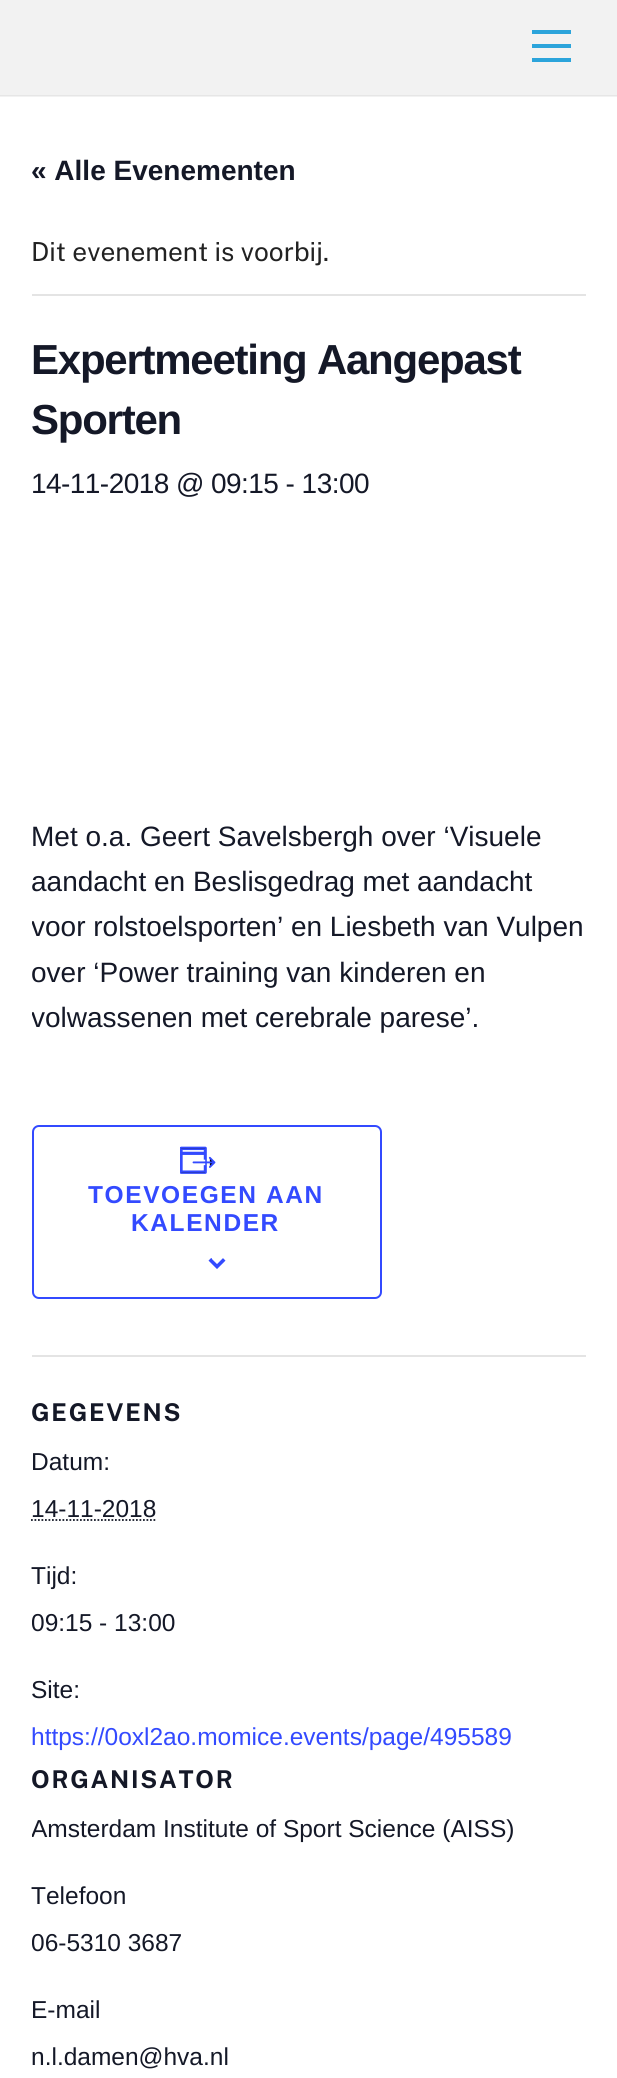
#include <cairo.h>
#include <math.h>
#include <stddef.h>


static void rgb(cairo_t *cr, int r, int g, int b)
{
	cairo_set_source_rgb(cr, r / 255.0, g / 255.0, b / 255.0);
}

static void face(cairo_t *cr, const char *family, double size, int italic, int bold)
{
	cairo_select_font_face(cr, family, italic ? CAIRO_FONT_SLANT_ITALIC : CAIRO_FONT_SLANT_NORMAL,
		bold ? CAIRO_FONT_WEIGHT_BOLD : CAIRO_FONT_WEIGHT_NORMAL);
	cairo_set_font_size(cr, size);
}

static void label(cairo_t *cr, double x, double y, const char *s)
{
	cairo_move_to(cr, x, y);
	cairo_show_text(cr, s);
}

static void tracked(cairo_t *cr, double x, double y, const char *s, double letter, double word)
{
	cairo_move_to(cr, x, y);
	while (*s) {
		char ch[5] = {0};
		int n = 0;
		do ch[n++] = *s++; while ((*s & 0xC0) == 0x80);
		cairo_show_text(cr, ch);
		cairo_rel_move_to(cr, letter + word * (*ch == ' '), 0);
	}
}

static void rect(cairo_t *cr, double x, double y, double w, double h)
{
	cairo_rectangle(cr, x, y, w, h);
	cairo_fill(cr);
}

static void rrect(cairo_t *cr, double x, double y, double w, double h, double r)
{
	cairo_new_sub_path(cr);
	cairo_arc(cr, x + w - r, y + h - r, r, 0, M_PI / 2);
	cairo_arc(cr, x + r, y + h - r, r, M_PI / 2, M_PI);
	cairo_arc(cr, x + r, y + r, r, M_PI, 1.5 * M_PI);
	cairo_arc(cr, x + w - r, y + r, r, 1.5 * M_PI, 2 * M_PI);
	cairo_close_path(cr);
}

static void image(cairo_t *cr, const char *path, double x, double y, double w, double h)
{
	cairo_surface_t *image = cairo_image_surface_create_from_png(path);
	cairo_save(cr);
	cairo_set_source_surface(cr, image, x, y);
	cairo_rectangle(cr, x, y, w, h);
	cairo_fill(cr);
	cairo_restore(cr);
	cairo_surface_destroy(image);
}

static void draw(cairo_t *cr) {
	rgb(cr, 255, 255, 255);
	cairo_paint(cr);
	rgb(cr, 242, 242, 242);
	rect(cr, 0, 96, 617, 1);
	rect(cr, 0, 0, 617, 95);
	rgb(cr, 230, 230, 230);
	rect(cr, 0, 95, 617, 1);
	rgb(cr, 44, 164, 219);
	rect(cr, 532, 58, 39, 4);
	rect(cr, 532, 30, 39, 4);
	rect(cr, 532, 44, 39, 4);
	face(cr, "Liberation Sans", 28, 0, 1);
	rgb(cr, 20, 24, 39);
	label(cr, 31, 180, "« Alle Evenementen");
	rgb(cr, 228, 228, 228);
	rect(cr, 32, 294, 554, 2);
	face(cr, "Public Sans", 26.25, 0, 0);
	rgb(cr, 34, 34, 34);
	label(cr, 31, 261, "Dit evenement is voorbij.");
	face(cr, "Liberation Sans", 42, 0, 1);
	rgb(cr, 20, 24, 39);
	tracked(cr, 31, 374, "Expertmeeting Aangepast", -1.25, 0);
	tracked(cr, 31, 434, "Sporten", -1.25, 0);
	face(cr, "Liberation Sans", 28, 0, 0);
	tracked(cr, 31, 493, "14-11-2018 @ 09:15 - 13:00", -0.55, 0);
	label(cr, 31, 846, "Met o.a. Geert Savelsbergh over ‘Visuele");
	label(cr, 31, 891, "aandacht en Beslisgedrag met aandacht");
	cairo_save(cr);
	cairo_rectangle(cr, 32, 555, 554, 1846);
	cairo_clip(cr);
	label(cr, 31, 936, "voor rolstoelsporten’ en Liesbeth van Vulpen");
	cairo_restore(cr);
	label(cr, 31, 982, "over ‘Power training van kinderen en");
	cairo_save(cr);
	cairo_rectangle(cr, 32, 555, 554, 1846);
	cairo_clip(cr);
	label(cr, 31, 1027, "volwassenen met cerebrale parese’.");
	cairo_restore(cr);
	rrect(cr, 33, 1126, 348, 172, 6);
	rgb(cr, 51, 74, 255);
	cairo_stroke(cr);
	image(cr, "image0.png", 180, 1146, 36, 28);
	face(cr, "Liberation Sans", 24.5, 0, 1);
	tracked(cr, 88, 1203, "TOEVOEGEN AAN", 1.6, 0);
	tracked(cr, 131, 1231, "KALENDER", 1.6, 0);
	image(cr, "image1.png", 208, 1258, 18, 11);
	rgb(cr, 228, 228, 228);
	rect(cr, 32, 1355, 554, 2);
	face(cr, "Public Sans", 24.5, 0, 1);
	rgb(cr, 20, 24, 39);
	tracked(cr, 31, 1421, "GEGEVENS", 1.75, 0);
	face(cr, "Liberation Sans", 24.5, 0, 0);
	label(cr, 31, 1470, "Datum:");
	label(cr, 31, 1517, "14-11-2018");
	cairo_new_path(cr);
	cairo_move_to(cr, 31, 1520);
	cairo_line_to(cr, 156, 1520);
	cairo_set_line_width(cr, 1.8);
	cairo_set_dash(cr, (double[]){1.75, 1.75}, 2, 0);
	cairo_stroke(cr);
	label(cr, 31, 1584, "Tijd:");
	cairo_save(cr);
	cairo_rectangle(cr, 32, 555, 554, 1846);
	cairo_clip(cr);
	label(cr, 31, 1631, "09:15 - 13:00");
	cairo_restore(cr);
	label(cr, 31, 1698, "Site:");
	rgb(cr, 51, 74, 255);
	label(cr, 31, 1745, "https://0oxl2ao.momice.events/page/495589");
	face(cr, "Public Sans", 24.5, 0, 1);
	rgb(cr, 20, 24, 39);
	tracked(cr, 31, 1788, "ORGANISATOR", 1.75, 0);
	cairo_save(cr);
	cairo_rectangle(cr, 32, 555, 554, 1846);
	cairo_clip(cr);
	face(cr, "Liberation Sans", 24.5, 0, 0);
	label(cr, 31, 1837, "Amsterdam Institute of Sport Science (AISS)");
	cairo_restore(cr);
	face(cr, "Liberation Sans", 24.5, 0, 0);
	label(cr, 31, 1904, "Telefoon");
	cairo_save(cr);
	cairo_rectangle(cr, 32, 555, 554, 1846);
	cairo_clip(cr);
	label(cr, 31, 1951, "06-5310 3687");
	cairo_restore(cr);
	label(cr, 31, 2018, "E-mail");
	label(cr, 31, 2065, "n.l.damen@hva.nl");
}

int main(void) {
	cairo_surface_t *surface = cairo_image_surface_create(CAIRO_FORMAT_RGB24, 617, 2078);
	cairo_t *cr = cairo_create(surface);
	cairo_font_options_t *options = cairo_font_options_create();
	cairo_font_options_set_hint_metrics(options, CAIRO_HINT_METRICS_OFF);
	cairo_font_options_set_hint_style(options, CAIRO_HINT_STYLE_NONE);
	cairo_set_font_options(cr, options);
	cairo_set_miter_limit(cr, 4);
	draw(cr);
	cairo_surface_write_to_png(surface, "render.png");
	cairo_font_options_destroy(options);
	cairo_destroy(cr);
	cairo_surface_destroy(surface);
	return 0;
}
